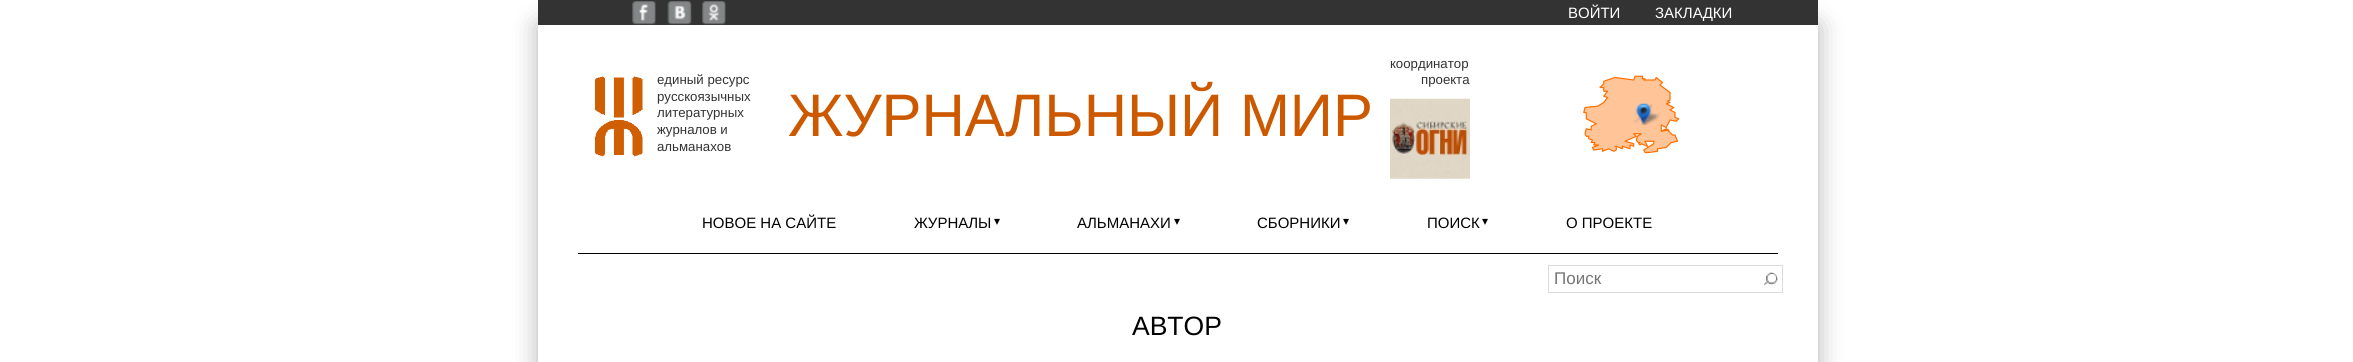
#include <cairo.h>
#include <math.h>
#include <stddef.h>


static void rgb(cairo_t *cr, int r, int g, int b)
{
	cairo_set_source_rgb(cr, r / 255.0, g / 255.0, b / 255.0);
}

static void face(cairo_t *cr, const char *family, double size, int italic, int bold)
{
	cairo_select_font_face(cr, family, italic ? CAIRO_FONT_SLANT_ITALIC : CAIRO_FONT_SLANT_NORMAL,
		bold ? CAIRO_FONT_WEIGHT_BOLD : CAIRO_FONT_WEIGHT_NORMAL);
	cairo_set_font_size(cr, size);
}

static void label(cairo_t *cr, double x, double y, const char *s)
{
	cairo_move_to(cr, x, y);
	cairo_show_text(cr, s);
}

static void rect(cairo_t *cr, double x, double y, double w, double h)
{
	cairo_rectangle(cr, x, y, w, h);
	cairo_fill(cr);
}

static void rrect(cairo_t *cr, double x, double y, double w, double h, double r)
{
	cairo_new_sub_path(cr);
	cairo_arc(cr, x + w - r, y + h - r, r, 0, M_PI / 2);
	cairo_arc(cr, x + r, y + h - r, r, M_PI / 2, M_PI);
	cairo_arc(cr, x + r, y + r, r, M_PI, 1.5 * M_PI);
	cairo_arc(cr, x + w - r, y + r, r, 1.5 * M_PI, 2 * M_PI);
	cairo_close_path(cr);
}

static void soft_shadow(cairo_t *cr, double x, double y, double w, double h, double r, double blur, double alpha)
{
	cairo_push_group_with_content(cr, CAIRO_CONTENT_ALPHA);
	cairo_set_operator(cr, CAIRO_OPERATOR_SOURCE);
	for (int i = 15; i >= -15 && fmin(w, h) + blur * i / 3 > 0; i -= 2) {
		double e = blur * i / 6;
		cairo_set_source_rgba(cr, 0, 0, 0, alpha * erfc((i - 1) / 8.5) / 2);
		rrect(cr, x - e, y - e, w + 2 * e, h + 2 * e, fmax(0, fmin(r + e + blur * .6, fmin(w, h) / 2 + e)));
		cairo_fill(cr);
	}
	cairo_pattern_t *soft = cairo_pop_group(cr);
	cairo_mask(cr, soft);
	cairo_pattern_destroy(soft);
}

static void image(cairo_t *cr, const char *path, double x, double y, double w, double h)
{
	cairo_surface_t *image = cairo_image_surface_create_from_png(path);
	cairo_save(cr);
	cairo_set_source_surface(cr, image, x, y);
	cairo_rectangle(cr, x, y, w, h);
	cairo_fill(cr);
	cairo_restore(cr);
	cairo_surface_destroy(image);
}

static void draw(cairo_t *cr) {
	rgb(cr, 255, 255, 255);
	cairo_paint(cr);
	rgb(cr, 0, 0, 0);
	soft_shadow(cr, 538, 25, 1280, 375, 0, 12.5, 0.3);
	rgb(cr, 255, 255, 255);
	rect(cr, 538, 25, 1280, 337);
	rgb(cr, 51, 51, 51);
	rect(cr, 538, 0, 1280, 25);
	image(cr, "image0.png", 632, 1, 24, 24);
	image(cr, "image1.png", 667, 1, 25, 24);
	image(cr, "image2.png", 702, 1, 24, 24);
	face(cr, "Liberation Sans", 15, 0, 0);
	rgb(cr, 255, 255, 255);
	label(cr, 1568, 18, "ВОЙТИ");
	label(cr, 1655, 18, "ЗАКЛАДКИ");
	image(cr, "image3.png", 595, 76, 48, 81);
	face(cr, "Liberation Sans", 13.25, 0, 0);
	rgb(cr, 51, 51, 51);
	label(cr, 657, 84, "единый ресурс");
	label(cr, 657, 101, "русскоязычных");
	label(cr, 657, 117, "литературных");
	label(cr, 657, 134, "журналов и");
	label(cr, 657, 151, "альманахов");
	face(cr, "Liberation Sans", 60, 0, 0);
	rgb(cr, 204, 88, 0);
	label(cr, 788, 136, "ЖУРНАЛЬНЫЙ МИР");
	face(cr, "Liberation Sans", 13.25, 0, 0);
	rgb(cr, 51, 51, 51);
	label(cr, 1390, 68, "координатор");
	label(cr, 1421, 84, "проекта");
	image(cr, "image4.png", 1390, 98, 80, 81);
	image(cr, "image5.png", 1583, 75, 97, 79);
	image(cr, "image7.png", 1641, 113, 19, 12);
	image(cr, "image6.png", 1633, 103, 20, 21);
	rgb(cr, 0, 0, 0);
	rect(cr, 578, 253, 1200, 1);
	face(cr, "Liberation Sans", 15, 0, 0);
	label(cr, 702, 228, "НОВОЕ НА САЙТЕ");
	label(cr, 914, 228, "ЖУРНАЛЫ");
	face(cr, "DejaVu Sans", 12, 0, 0);
	label(cr, 994, 225, "▾");
	face(cr, "Liberation Sans", 15, 0, 0);
	label(cr, 1077, 228, "АЛЬМАНАХИ");
	face(cr, "DejaVu Sans", 12, 0, 0);
	label(cr, 1174, 225, "▾");
	face(cr, "Liberation Sans", 15, 0, 0);
	label(cr, 1257, 228, "СБОРНИКИ");
	face(cr, "DejaVu Sans", 12, 0, 0);
	label(cr, 1343, 225, "▾");
	face(cr, "Liberation Sans", 15, 0, 0);
	label(cr, 1427, 228, "ПОИСК");
	face(cr, "DejaVu Sans", 12, 0, 0);
	label(cr, 1482, 225, "▾");
	face(cr, "Liberation Sans", 15, 0, 0);
	label(cr, 1566, 228, "О ПРОЕКТЕ");
	cairo_rectangle(cr, 1548.5, 265.5, 234, 27);
	rgb(cr, 218, 218, 218);
	cairo_set_line_width(cr, 1);
	cairo_stroke(cr);
	face(cr, "Liberation Sans", 17, 0, 0);
	rgb(cr, 117, 117, 117);
	label(cr, 1554, 284, "Поиск");
	image(cr, "image8.png", 1764, 272, 14, 13);
	face(cr, "Liberation Sans", 26.5, 0, 0);
	rgb(cr, 0, 0, 0);
	label(cr, 1132, 335, "АВТОР");
}

int main(void) {
	cairo_surface_t *surface = cairo_image_surface_create(CAIRO_FORMAT_RGB24, 2353, 362);
	cairo_t *cr = cairo_create(surface);
	cairo_font_options_t *options = cairo_font_options_create();
	cairo_font_options_set_hint_metrics(options, CAIRO_HINT_METRICS_OFF);
	cairo_font_options_set_hint_style(options, CAIRO_HINT_STYLE_NONE);
	cairo_set_font_options(cr, options);
	cairo_set_miter_limit(cr, 4);
	draw(cr);
	cairo_surface_write_to_png(surface, "render.png");
	cairo_font_options_destroy(options);
	cairo_destroy(cr);
	cairo_surface_destroy(surface);
	return 0;
}
